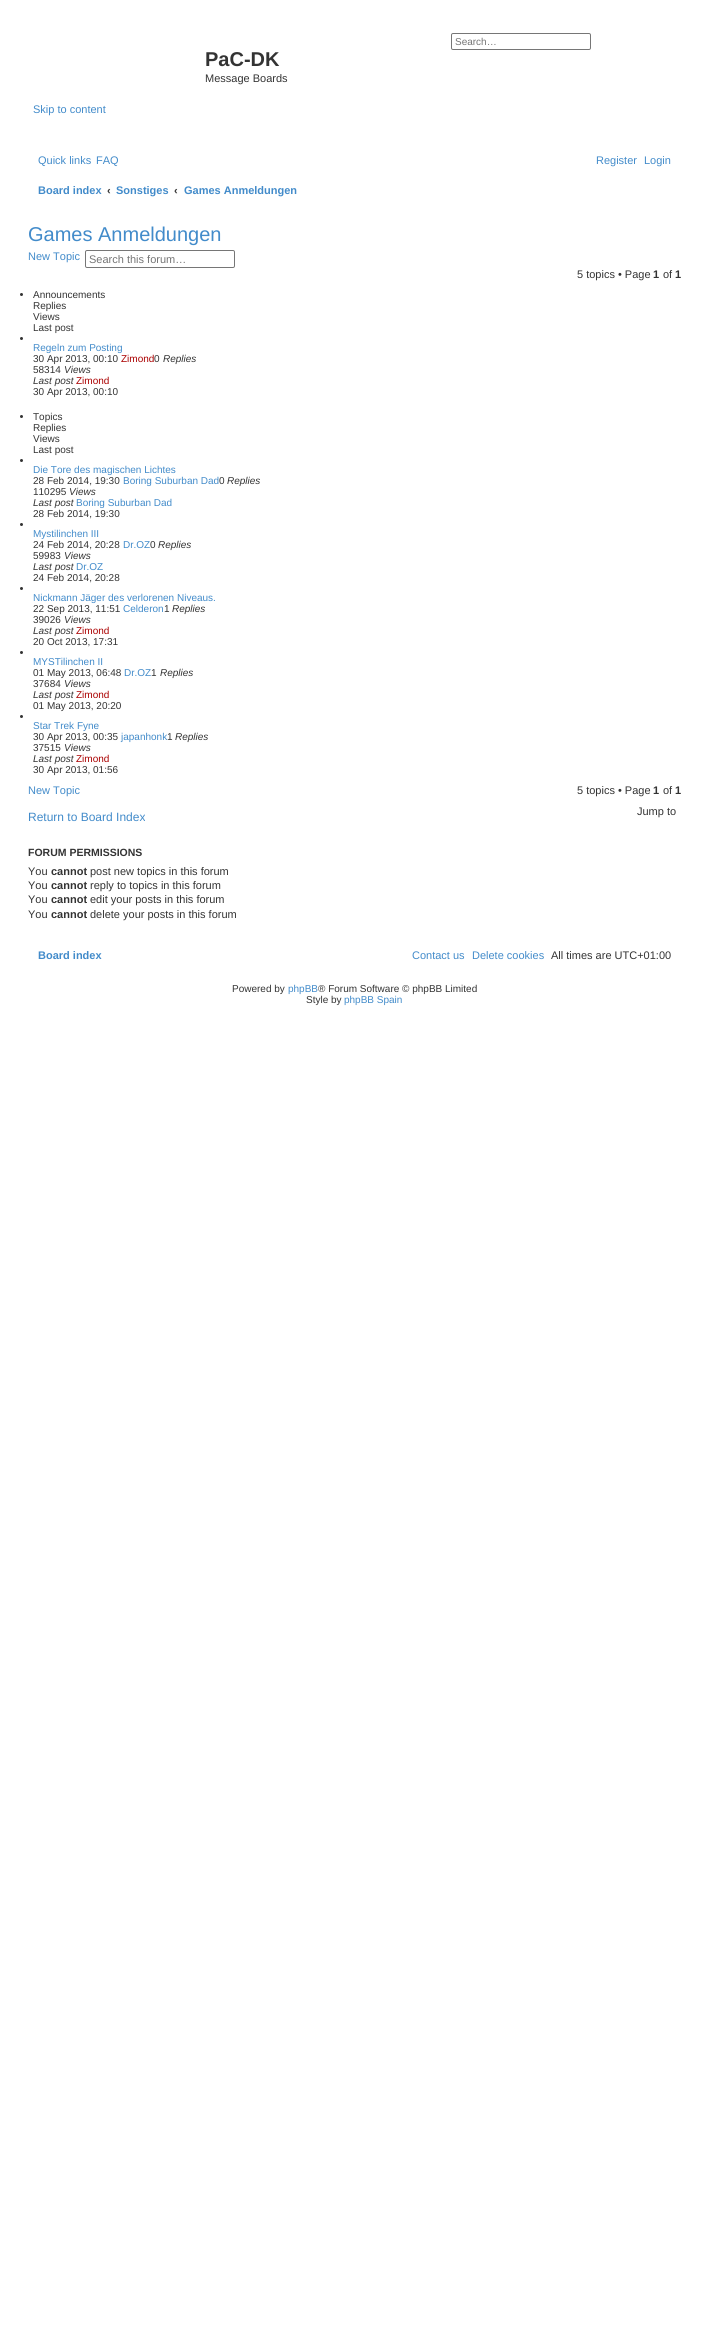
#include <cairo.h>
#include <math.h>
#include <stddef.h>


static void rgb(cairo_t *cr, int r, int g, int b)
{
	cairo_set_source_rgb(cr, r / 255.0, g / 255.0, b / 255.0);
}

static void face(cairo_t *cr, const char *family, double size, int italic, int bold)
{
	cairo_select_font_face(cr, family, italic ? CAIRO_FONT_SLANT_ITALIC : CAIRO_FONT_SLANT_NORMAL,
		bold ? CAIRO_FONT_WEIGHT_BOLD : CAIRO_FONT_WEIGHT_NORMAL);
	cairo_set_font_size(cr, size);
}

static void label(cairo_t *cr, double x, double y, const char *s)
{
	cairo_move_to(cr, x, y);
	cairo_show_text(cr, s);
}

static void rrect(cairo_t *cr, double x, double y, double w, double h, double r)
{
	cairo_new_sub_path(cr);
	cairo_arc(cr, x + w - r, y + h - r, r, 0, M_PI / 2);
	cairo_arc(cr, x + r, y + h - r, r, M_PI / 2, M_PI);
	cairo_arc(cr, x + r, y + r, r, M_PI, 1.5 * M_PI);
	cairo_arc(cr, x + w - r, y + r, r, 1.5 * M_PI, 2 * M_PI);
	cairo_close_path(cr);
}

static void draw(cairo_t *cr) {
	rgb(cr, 255, 255, 255);
	cairo_paint(cr);
	rrect(cr, 451.5, 33.5, 139, 16, 1.5);
	rgb(cr, 118, 118, 118);
	cairo_set_line_width(cr, 1);
	cairo_stroke(cr);
	face(cr, "Liberation Sans", 10, 0, 0);
	rgb(cr, 117, 117, 117);
	label(cr, 455, 45, "Search…");
	face(cr, "Liberation Sans", 20, 0, 1);
	rgb(cr, 51, 51, 51);
	label(cr, 205, 66, "PaC-DK");
	face(cr, "Liberation Sans", 11, 0, 0);
	label(cr, 205, 82, "Message Boards");
	rgb(cr, 66, 139, 202);
	label(cr, 33, 113, "Skip to content");
	label(cr, 38, 164, "Quick links");
	label(cr, 96, 164, "FAQ");
	label(cr, 596, 164, "Register");
	label(cr, 644, 164, "Login");
	face(cr, "Liberation Sans", 11, 0, 1);
	label(cr, 38, 194, "Board index");
	rgb(cr, 51, 51, 51);
	label(cr, 107, 194, "‹");
	rgb(cr, 66, 139, 202);
	label(cr, 116, 194, "Sonstiges");
	rgb(cr, 51, 51, 51);
	label(cr, 174, 194, "‹");
	rgb(cr, 66, 139, 202);
	label(cr, 184, 194, "Games Anmeldungen");
	face(cr, "Liberation Sans", 20, 0, 0);
	label(cr, 28, 241, "Games Anmeldungen");
	face(cr, "Liberation Sans", 11, 0, 0);
	label(cr, 28, 260, "New Topic");
	rrect(cr, 85.5, 250.5, 149, 17, 1.5);
	rgb(cr, 118, 118, 118);
	cairo_stroke(cr);
	rgb(cr, 117, 117, 117);
	label(cr, 89, 263, "Search this forum…");
	rgb(cr, 51, 51, 51);
	label(cr, 577, 278, "5 topics • Page");
	face(cr, "Liberation Sans", 11, 0, 1);
	label(cr, 653, 278, "1");
	face(cr, "Liberation Sans", 11, 0, 0);
	label(cr, 663, 278, "of");
	face(cr, "Liberation Sans", 11, 0, 1);
	label(cr, 675, 278, "1");
	cairo_new_path(cr);
	cairo_arc(cr, 21.5, 294.5, 1.5, 0, 2 * M_PI);
	cairo_fill(cr);
	face(cr, "Liberation Sans", 10, 0, 0);
	label(cr, 33, 298, "Announcements");
	label(cr, 33, 309, "Replies");
	label(cr, 33, 320, "Views");
	label(cr, 33, 331, "Last post");
	cairo_new_path(cr);
	cairo_arc(cr, 21.5, 338.5, 1.5, 0, 2 * M_PI);
	cairo_fill(cr);
	rgb(cr, 66, 139, 202);
	label(cr, 33, 351, "Regeln zum Posting");
	rgb(cr, 51, 51, 51);
	label(cr, 33, 362, "30 Apr 2013, 00:10");
	rgb(cr, 170, 0, 0);
	label(cr, 121, 362, "Zimond");
	rgb(cr, 51, 51, 51);
	label(cr, 154, 362, "0");
	face(cr, "Liberation Sans", 10, 1, 0);
	label(cr, 163, 362, "Replies");
	face(cr, "Liberation Sans", 10, 0, 0);
	label(cr, 33, 373, "58314");
	face(cr, "Liberation Sans", 10, 1, 0);
	label(cr, 64, 373, "Views");
	label(cr, 33, 384, "Last post");
	face(cr, "Liberation Sans", 10, 0, 0);
	rgb(cr, 170, 0, 0);
	label(cr, 76, 384, "Zimond");
	rgb(cr, 51, 51, 51);
	label(cr, 33, 395, "30 Apr 2013, 00:10");
	cairo_new_path(cr);
	cairo_arc(cr, 21.5, 416.5, 1.5, 0, 2 * M_PI);
	cairo_fill(cr);
	label(cr, 33, 420, "Topics");
	label(cr, 33, 431, "Replies");
	label(cr, 33, 442, "Views");
	label(cr, 33, 453, "Last post");
	cairo_new_path(cr);
	cairo_arc(cr, 21.5, 460.5, 1.5, 0, 2 * M_PI);
	cairo_fill(cr);
	rgb(cr, 66, 139, 202);
	label(cr, 33, 473, "Die Tore des magischen Lichtes");
	rgb(cr, 51, 51, 51);
	label(cr, 33, 484, "28 Feb 2014, 19:30");
	rgb(cr, 66, 139, 202);
	label(cr, 123, 484, "Boring Suburban Dad");
	rgb(cr, 51, 51, 51);
	label(cr, 219, 484, "0");
	face(cr, "Liberation Sans", 10, 1, 0);
	label(cr, 227, 484, "Replies");
	face(cr, "Liberation Sans", 10, 0, 0);
	label(cr, 33, 495, "110295");
	face(cr, "Liberation Sans", 10, 1, 0);
	label(cr, 69, 495, "Views");
	label(cr, 33, 506, "Last post");
	face(cr, "Liberation Sans", 10, 0, 0);
	rgb(cr, 66, 139, 202);
	label(cr, 76, 506, "Boring Suburban Dad");
	rgb(cr, 51, 51, 51);
	label(cr, 33, 517, "28 Feb 2014, 19:30");
	cairo_new_path(cr);
	cairo_arc(cr, 21.5, 524.5, 1.5, 0, 2 * M_PI);
	cairo_fill(cr);
	rgb(cr, 66, 139, 202);
	label(cr, 33, 537, "Mystilinchen III");
	rgb(cr, 51, 51, 51);
	label(cr, 33, 548, "24 Feb 2014, 20:28");
	rgb(cr, 66, 139, 202);
	label(cr, 123, 548, "Dr.OZ");
	rgb(cr, 51, 51, 51);
	label(cr, 150, 548, "0");
	face(cr, "Liberation Sans", 10, 1, 0);
	label(cr, 158, 548, "Replies");
	face(cr, "Liberation Sans", 10, 0, 0);
	label(cr, 33, 559, "59983");
	face(cr, "Liberation Sans", 10, 1, 0);
	label(cr, 64, 559, "Views");
	label(cr, 33, 570, "Last post");
	face(cr, "Liberation Sans", 10, 0, 0);
	rgb(cr, 66, 139, 202);
	label(cr, 76, 570, "Dr.OZ");
	rgb(cr, 51, 51, 51);
	label(cr, 33, 581, "24 Feb 2014, 20:28");
	cairo_new_path(cr);
	cairo_arc(cr, 21.5, 588.5, 1.5, 0, 2 * M_PI);
	cairo_fill(cr);
	rgb(cr, 66, 139, 202);
	label(cr, 33, 601, "Nickmann Jäger des verlorenen Niveaus.");
	rgb(cr, 51, 51, 51);
	label(cr, 33, 612, "22 Sep 2013, 11:51");
	rgb(cr, 66, 139, 202);
	label(cr, 123, 612, "Celderon");
	rgb(cr, 51, 51, 51);
	label(cr, 164, 612, "1");
	face(cr, "Liberation Sans", 10, 1, 0);
	label(cr, 172, 612, "Replies");
	face(cr, "Liberation Sans", 10, 0, 0);
	label(cr, 33, 623, "39026");
	face(cr, "Liberation Sans", 10, 1, 0);
	label(cr, 64, 623, "Views");
	label(cr, 33, 634, "Last post");
	face(cr, "Liberation Sans", 10, 0, 0);
	rgb(cr, 170, 0, 0);
	label(cr, 76, 634, "Zimond");
	rgb(cr, 51, 51, 51);
	label(cr, 33, 645, "20 Oct 2013, 17:31");
	cairo_new_path(cr);
	cairo_arc(cr, 21.5, 652.5, 1.5, 0, 2 * M_PI);
	cairo_fill(cr);
	rgb(cr, 66, 139, 202);
	label(cr, 33, 665, "MYSTilinchen II");
	rgb(cr, 51, 51, 51);
	label(cr, 33, 676, "01 May 2013, 06:48");
	rgb(cr, 66, 139, 202);
	label(cr, 124, 676, "Dr.OZ");
	rgb(cr, 51, 51, 51);
	label(cr, 151, 676, "1");
	face(cr, "Liberation Sans", 10, 1, 0);
	label(cr, 160, 676, "Replies");
	face(cr, "Liberation Sans", 10, 0, 0);
	label(cr, 33, 687, "37684");
	face(cr, "Liberation Sans", 10, 1, 0);
	label(cr, 64, 687, "Views");
	label(cr, 33, 698, "Last post");
	face(cr, "Liberation Sans", 10, 0, 0);
	rgb(cr, 170, 0, 0);
	label(cr, 76, 698, "Zimond");
	rgb(cr, 51, 51, 51);
	label(cr, 33, 709, "01 May 2013, 20:20");
	cairo_new_path(cr);
	cairo_arc(cr, 21.5, 716.5, 1.5, 0, 2 * M_PI);
	cairo_fill(cr);
	rgb(cr, 66, 139, 202);
	label(cr, 33, 729, "Star Trek Fyne");
	rgb(cr, 51, 51, 51);
	label(cr, 33, 740, "30 Apr 2013, 00:35");
	rgb(cr, 66, 139, 202);
	label(cr, 121, 740, "japanhonk");
	rgb(cr, 51, 51, 51);
	label(cr, 167, 740, "1");
	face(cr, "Liberation Sans", 10, 1, 0);
	label(cr, 175, 740, "Replies");
	face(cr, "Liberation Sans", 10, 0, 0);
	label(cr, 33, 751, "37515");
	face(cr, "Liberation Sans", 10, 1, 0);
	label(cr, 64, 751, "Views");
	label(cr, 33, 762, "Last post");
	face(cr, "Liberation Sans", 10, 0, 0);
	rgb(cr, 170, 0, 0);
	label(cr, 76, 762, "Zimond");
	rgb(cr, 51, 51, 51);
	label(cr, 33, 773, "30 Apr 2013, 01:56");
	face(cr, "Liberation Sans", 11, 0, 0);
	rgb(cr, 66, 139, 202);
	label(cr, 28, 794, "New Topic");
	rgb(cr, 51, 51, 51);
	label(cr, 577, 794, "5 topics • Page");
	face(cr, "Liberation Sans", 11, 0, 1);
	label(cr, 653, 794, "1");
	face(cr, "Liberation Sans", 11, 0, 0);
	label(cr, 663, 794, "of");
	face(cr, "Liberation Sans", 11, 0, 1);
	label(cr, 675, 794, "1");
	face(cr, "Liberation Sans", 12, 0, 0);
	rgb(cr, 66, 139, 202);
	label(cr, 28, 821, "Return to Board Index");
	face(cr, "Liberation Sans", 11, 0, 0);
	rgb(cr, 51, 51, 51);
	label(cr, 637, 815, "Jump to");
	face(cr, "Liberation Sans", 10.5, 0, 1);
	label(cr, 28, 856, "FORUM PERMISSIONS");
	face(cr, "Liberation Sans", 11, 0, 0);
	label(cr, 28, 875, "You");
	face(cr, "Liberation Sans", 11, 0, 1);
	label(cr, 51, 875, "cannot");
	face(cr, "Liberation Sans", 11, 0, 0);
	label(cr, 90, 875, "post new topics in this forum");
	label(cr, 28, 889, "You");
	face(cr, "Liberation Sans", 11, 0, 1);
	label(cr, 51, 889, "cannot");
	face(cr, "Liberation Sans", 11, 0, 0);
	label(cr, 90, 889, "reply to topics in this forum");
	label(cr, 28, 903, "You");
	face(cr, "Liberation Sans", 11, 0, 1);
	label(cr, 51, 903, "cannot");
	face(cr, "Liberation Sans", 11, 0, 0);
	label(cr, 90, 903, "edit your posts in this forum");
	label(cr, 28, 918, "You");
	face(cr, "Liberation Sans", 11, 0, 1);
	label(cr, 51, 918, "cannot");
	face(cr, "Liberation Sans", 11, 0, 0);
	label(cr, 90, 918, "delete your posts in this forum");
	face(cr, "Liberation Sans", 11, 0, 1);
	rgb(cr, 66, 139, 202);
	label(cr, 38, 959, "Board index");
	face(cr, "Liberation Sans", 11, 0, 0);
	label(cr, 412, 959, "Contact us");
	label(cr, 472, 959, "Delete cookies");
	rgb(cr, 51, 51, 51);
	label(cr, 551, 959, "All times are UTC+01:00");
	face(cr, "Liberation Sans", 10, 0, 0);
	label(cr, 232, 992, "Powered by");
	rgb(cr, 66, 139, 202);
	label(cr, 288, 992, "phpBB");
	rgb(cr, 51, 51, 51);
	label(cr, 318, 992, "® Forum Software © phpBB Limited");
	label(cr, 306, 1003, "Style by");
	rgb(cr, 66, 139, 202);
	label(cr, 344, 1003, "phpBB Spain");
}

int main(void) {
	cairo_surface_t *surface = cairo_image_surface_create(CAIRO_FORMAT_RGB24, 709, 2325);
	cairo_t *cr = cairo_create(surface);
	cairo_font_options_t *options = cairo_font_options_create();
	cairo_font_options_set_hint_metrics(options, CAIRO_HINT_METRICS_OFF);
	cairo_font_options_set_hint_style(options, CAIRO_HINT_STYLE_NONE);
	cairo_set_font_options(cr, options);
	cairo_set_miter_limit(cr, 4);
	draw(cr);
	cairo_surface_write_to_png(surface, "render.png");
	cairo_font_options_destroy(options);
	cairo_destroy(cr);
	cairo_surface_destroy(surface);
	return 0;
}
